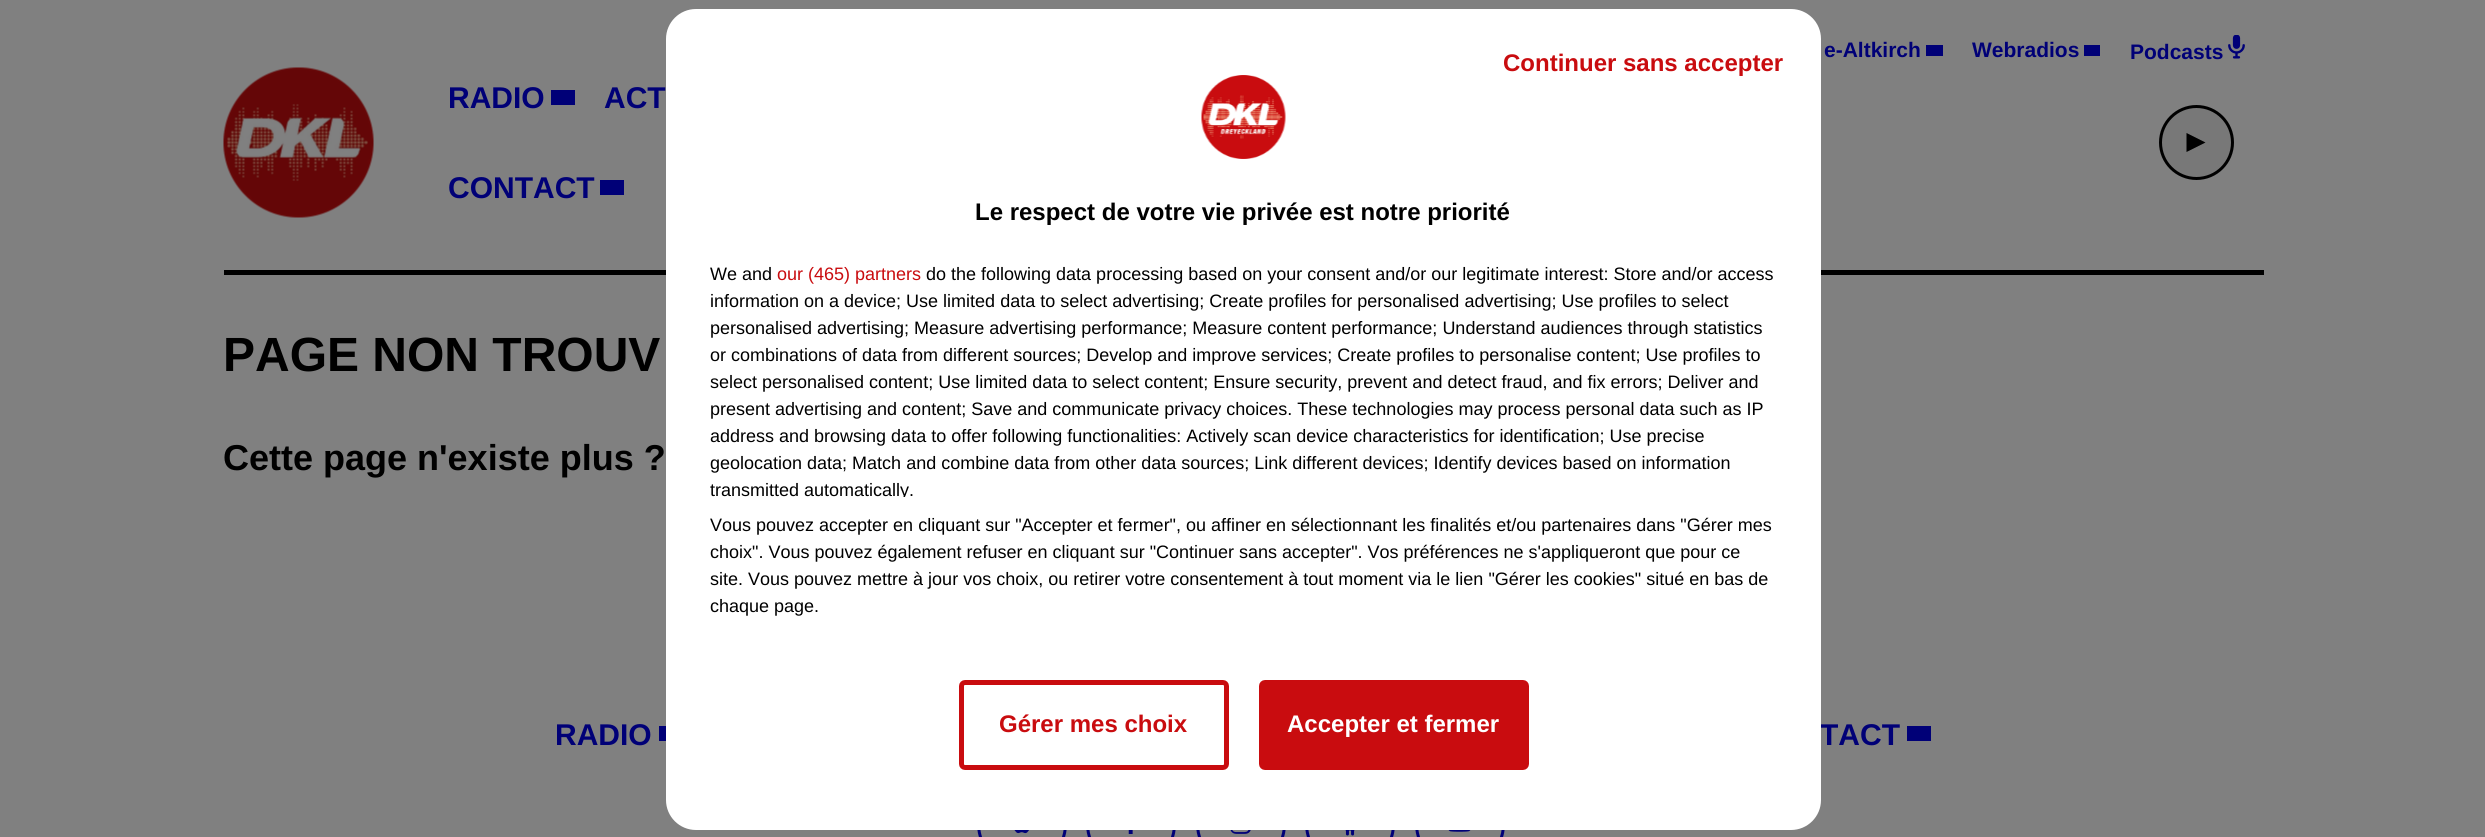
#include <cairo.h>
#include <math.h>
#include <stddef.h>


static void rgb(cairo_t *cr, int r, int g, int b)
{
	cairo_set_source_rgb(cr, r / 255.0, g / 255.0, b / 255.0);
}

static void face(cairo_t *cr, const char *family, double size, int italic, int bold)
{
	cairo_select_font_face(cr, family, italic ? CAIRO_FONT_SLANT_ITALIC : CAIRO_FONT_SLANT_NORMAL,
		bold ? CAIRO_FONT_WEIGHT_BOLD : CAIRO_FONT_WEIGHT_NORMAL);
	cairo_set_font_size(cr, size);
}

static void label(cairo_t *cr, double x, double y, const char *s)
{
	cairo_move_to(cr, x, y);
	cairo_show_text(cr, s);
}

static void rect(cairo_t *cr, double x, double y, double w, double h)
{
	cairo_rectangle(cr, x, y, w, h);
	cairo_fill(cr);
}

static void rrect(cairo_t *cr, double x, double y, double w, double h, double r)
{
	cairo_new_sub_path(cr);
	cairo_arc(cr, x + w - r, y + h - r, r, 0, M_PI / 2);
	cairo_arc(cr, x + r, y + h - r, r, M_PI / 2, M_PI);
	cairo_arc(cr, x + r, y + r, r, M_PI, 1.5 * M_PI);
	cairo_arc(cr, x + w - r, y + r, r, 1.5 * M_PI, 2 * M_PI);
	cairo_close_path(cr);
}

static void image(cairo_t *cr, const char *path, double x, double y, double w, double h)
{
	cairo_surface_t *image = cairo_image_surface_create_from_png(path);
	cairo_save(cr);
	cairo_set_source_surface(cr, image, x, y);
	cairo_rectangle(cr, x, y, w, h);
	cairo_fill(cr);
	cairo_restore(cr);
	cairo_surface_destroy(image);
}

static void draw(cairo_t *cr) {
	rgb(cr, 128, 128, 128);
	cairo_paint(cr);
	face(cr, "Liberation Sans", 21, 0, 1);
	rgb(cr, 0, 0, 119);
	label(cr, 1824, 57, "e-Altkirch");
	rect(cr, 1926, 45, 17, 11);
	label(cr, 1972, 57, "Webradios");
	rect(cr, 2084, 45, 16, 11);
	label(cr, 2130, 59, "Podcasts");
	image(cr, "image0.png", 2228, 35, 17, 24);
	rgb(cr, 120, 120, 120);
	cairo_arc(cr, 2196.5, 142.5, 36, 0, 2 * M_PI);
	cairo_fill_preserve(cr);
	rgb(cr, 0, 0, 0);
	cairo_set_line_width(cr, 3);
	cairo_stroke(cr);
	cairo_new_path(cr);
	cairo_move_to(cr, 2205.5, 142.5);
	cairo_line_to(cr, 2186.5, 152);
	cairo_line_to(cr, 2186.5, 133);
	cairo_close_path(cr);
	cairo_fill(cr);
	image(cr, "image1.png", 223, 67, 151, 151);
	face(cr, "Liberation Sans", 30, 0, 1);
	rgb(cr, 0, 0, 119);
	label(cr, 448, 108, "RADIO");
	rect(cr, 551, 90, 24, 15);
	label(cr, 604, 108, "ACT");
	label(cr, 448, 198, "CONTACT");
	rect(cr, 600, 180, 24, 15);
	rgb(cr, 0, 0, 0);
	rect(cr, 224, 270, 2040, 5);
	face(cr, "Liberation Sans", 48, 0, 1);
	label(cr, 223, 371, "PAGE NON TROUV");
	face(cr, "Liberation Sans", 36, 0, 1);
	label(cr, 223, 470, "Cette page n'existe plus ?");
	face(cr, "Liberation Sans", 30, 0, 1);
	rgb(cr, 0, 0, 119);
	label(cr, 555, 745, "RADIO");
	rect(cr, 659, 726, 7, 15);
	label(cr, 1820, 745, "TACT");
	rect(cr, 1907, 726, 24, 15);
	cairo_new_path(cr);
	cairo_arc(cr, 1022, 824, 43.5, 0, 2 * M_PI);
	cairo_stroke(cr);
	image(cr, "image2.png", 1014, 830, 15, 4);
	cairo_arc(cr, 1131, 824, 43.5, 0, 2 * M_PI);
	cairo_stroke(cr);
	image(cr, "image3.png", 1128, 830, 5, 4);
	cairo_arc(cr, 1241, 824, 43.5, 0, 2 * M_PI);
	cairo_stroke(cr);
	image(cr, "image4.png", 1230, 830, 21, 4);
	cairo_arc(cr, 1350, 824, 43.5, 0, 2 * M_PI);
	cairo_stroke(cr);
	image(cr, "image5.png", 1345, 830, 10, 6);
	cairo_arc(cr, 1460, 824, 43.5, 0, 2 * M_PI);
	cairo_stroke(cr);
	image(cr, "image6.png", 1448, 830, 23, 2);
	rgb(cr, 255, 255, 255);
	rrect(cr, 666, 9, 1155, 821, 30);
	cairo_fill(cr);
	face(cr, "Liberation Sans", 24, 0, 1);
	rgb(cr, 201, 12, 15);
	label(cr, 1503, 71, "Continuer sans accepter");
	rrect(cr, 961.5, 682.5, 265, 85, 3.5);
	cairo_set_line_width(cr, 5);
	cairo_stroke(cr);
	label(cr, 999, 732, "Gérer mes choix");
	rrect(cr, 1261.5, 682.5, 265, 85, 3.5);
	cairo_fill_preserve(cr);
	cairo_stroke(cr);
	rgb(cr, 255, 255, 255);
	label(cr, 1287, 732, "Accepter et fermer");
	image(cr, "image7.png", 1201, 75, 85, 84);
	rgb(cr, 0, 0, 0);
	label(cr, 975, 220, "Le respect de votre vie privée est notre priorité");
	face(cr, "Liberation Sans", 18, 0, 0);
	label(cr, 710, 280, "We and");
	rgb(cr, 201, 12, 15);
	label(cr, 777, 280, "our (465) partners");
	rgb(cr, 0, 0, 0);
	label(cr, 926, 280, "do the following data processing based on your consent and/or our legitimate interest: Store and/or access");
	label(cr, 710, 307, "information on a device; Use limited data to select advertising; Create profiles for personalised advertising; Use profiles to select");
	label(cr, 710, 334, "personalised advertising; Measure advertising performance; Measure content performance; Understand audiences through statistics");
	label(cr, 710, 361, "or combinations of data from different sources; Develop and improve services; Create profiles to personalise content; Use profiles to");
	label(cr, 710, 388, "select personalised content; Use limited data to select content; Ensure security, prevent and detect fraud, and fix errors; Deliver and");
	label(cr, 710, 415, "present advertising and content; Save and communicate privacy choices. These technologies may process personal data such as IP");
	label(cr, 710, 442, "address and browsing data to offer following functionalities: Actively scan device characteristics for identification; Use precise");
	label(cr, 710, 469, "geolocation data; Match and combine data from other data sources; Link different devices; Identify devices based on information");
	cairo_save(cr);
	cairo_rectangle(cr, 696, 246, 1095, 251);
	cairo_clip(cr);
	label(cr, 710, 496, "transmitted automatically.");
	cairo_restore(cr);
	label(cr, 710, 531, "Vous pouvez accepter en cliquant sur \"Accepter et fermer\", ou affiner en sélectionnant les finalités et/ou partenaires dans \"Gérer mes");
	label(cr, 710, 558, "choix\". Vous pouvez également refuser en cliquant sur \"Continuer sans accepter\". Vos préférences ne s'appliqueront que pour ce");
	label(cr, 710, 585, "site. Vous pouvez mettre à jour vos choix, ou retirer votre consentement à tout moment via le lien \"Gérer les cookies\" situé en bas de");
	label(cr, 710, 612, "chaque page.");
}

int main(void) {
	cairo_surface_t *surface = cairo_image_surface_create(CAIRO_FORMAT_RGB24, 2485, 837);
	cairo_t *cr = cairo_create(surface);
	cairo_font_options_t *options = cairo_font_options_create();
	cairo_font_options_set_hint_metrics(options, CAIRO_HINT_METRICS_OFF);
	cairo_font_options_set_hint_style(options, CAIRO_HINT_STYLE_NONE);
	cairo_set_font_options(cr, options);
	cairo_set_miter_limit(cr, 4);
	draw(cr);
	cairo_surface_write_to_png(surface, "render.png");
	cairo_font_options_destroy(options);
	cairo_destroy(cr);
	cairo_surface_destroy(surface);
	return 0;
}
